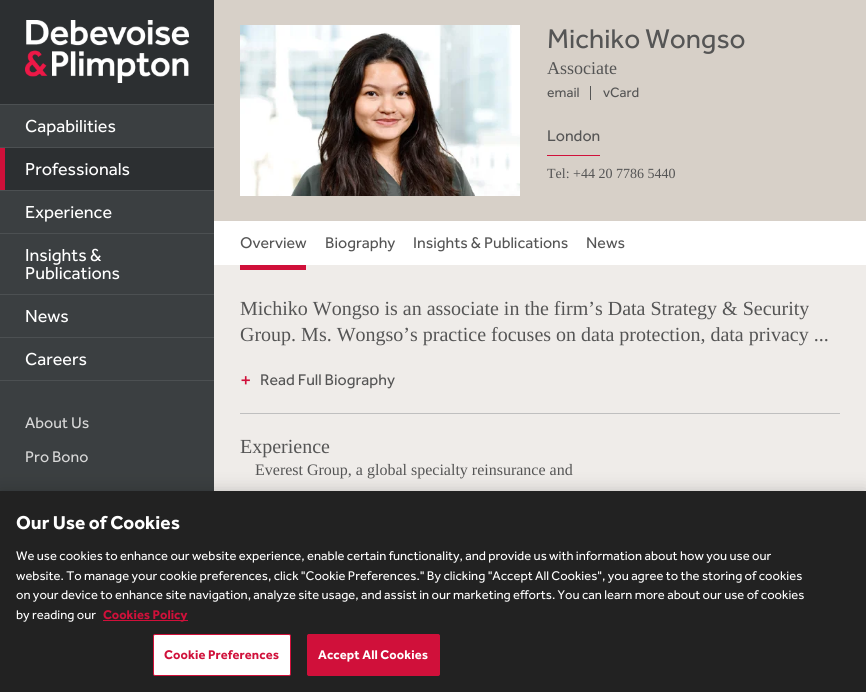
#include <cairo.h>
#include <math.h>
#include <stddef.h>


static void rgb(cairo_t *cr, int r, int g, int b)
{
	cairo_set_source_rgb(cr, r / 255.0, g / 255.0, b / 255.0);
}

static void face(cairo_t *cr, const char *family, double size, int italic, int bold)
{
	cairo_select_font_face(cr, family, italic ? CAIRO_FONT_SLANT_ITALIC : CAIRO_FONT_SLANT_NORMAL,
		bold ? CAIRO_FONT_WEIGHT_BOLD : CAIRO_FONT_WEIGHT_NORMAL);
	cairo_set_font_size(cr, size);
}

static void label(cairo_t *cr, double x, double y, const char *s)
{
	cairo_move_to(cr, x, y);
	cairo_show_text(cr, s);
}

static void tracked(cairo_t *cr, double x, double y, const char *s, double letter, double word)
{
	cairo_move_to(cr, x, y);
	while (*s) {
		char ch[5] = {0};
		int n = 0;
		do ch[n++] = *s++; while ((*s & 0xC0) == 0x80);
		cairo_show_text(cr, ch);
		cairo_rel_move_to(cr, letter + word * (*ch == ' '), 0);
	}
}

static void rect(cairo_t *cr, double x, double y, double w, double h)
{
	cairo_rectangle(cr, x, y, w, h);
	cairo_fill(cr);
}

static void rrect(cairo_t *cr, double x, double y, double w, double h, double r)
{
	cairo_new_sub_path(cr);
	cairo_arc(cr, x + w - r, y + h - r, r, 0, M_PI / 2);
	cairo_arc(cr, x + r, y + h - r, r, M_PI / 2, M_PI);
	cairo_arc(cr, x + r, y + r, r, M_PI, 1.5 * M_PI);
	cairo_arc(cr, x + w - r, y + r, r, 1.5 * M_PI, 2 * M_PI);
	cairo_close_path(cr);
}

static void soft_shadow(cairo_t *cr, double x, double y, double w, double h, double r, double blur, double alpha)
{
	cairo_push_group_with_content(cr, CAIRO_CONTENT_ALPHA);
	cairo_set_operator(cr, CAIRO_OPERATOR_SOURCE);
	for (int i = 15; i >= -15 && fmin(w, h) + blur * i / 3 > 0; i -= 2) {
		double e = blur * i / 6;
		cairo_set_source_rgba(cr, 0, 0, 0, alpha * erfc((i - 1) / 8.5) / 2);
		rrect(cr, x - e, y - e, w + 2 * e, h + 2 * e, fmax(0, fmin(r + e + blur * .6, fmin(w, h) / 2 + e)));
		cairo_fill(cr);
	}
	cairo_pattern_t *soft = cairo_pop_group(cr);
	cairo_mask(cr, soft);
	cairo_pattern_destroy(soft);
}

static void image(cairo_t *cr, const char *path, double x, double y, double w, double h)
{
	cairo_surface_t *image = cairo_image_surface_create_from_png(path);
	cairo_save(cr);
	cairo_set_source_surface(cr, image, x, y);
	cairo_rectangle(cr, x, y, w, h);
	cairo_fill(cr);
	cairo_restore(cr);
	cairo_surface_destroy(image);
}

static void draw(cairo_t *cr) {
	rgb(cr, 239, 236, 233);
	cairo_paint(cr);
	rgb(cr, 44, 47, 49);
	rect(cr, 0, 0, 214, 104);
	image(cr, "image0.png", 25, 20, 164, 63);
	rgb(cr, 215, 208, 200);
	rect(cr, 214, 0, 652, 221);
	image(cr, "image1.png", 240, 25, 280, 171);
	face(cr, "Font", 28, 0, 0);
	rgb(cr, 85, 85, 85);
	label(cr, 547, 48, "Michiko Wongso");
	face(cr, "Liberation Serif", 18, 0, 0);
	label(cr, 547, 74, "Associate");
	rect(cr, 590, 86, 1, 14);
	face(cr, "Font", 14, 0, 0);
	label(cr, 547, 97, "email");
	label(cr, 603, 97, "vCard");
	rgb(cr, 208, 16, 58);
	rect(cr, 547, 155, 53, 1);
	face(cr, "Font", 16, 0, 0);
	rgb(cr, 85, 85, 85);
	label(cr, 547, 141, "London");
	face(cr, "Liberation Serif", 14, 0, 0);
	label(cr, 547, 178, "Tel: +44 20 7786 5440");
	rgb(cr, 59, 63, 65);
	rect(cr, 0, 105, 214, 386);
	rgb(cr, 76, 80, 82);
	rect(cr, 0, 104, 214, 1);
	rect(cr, 0, 147, 214, 1);
	face(cr, "Font", 18, 0, 0);
	rgb(cr, 255, 255, 255);
	label(cr, 25, 132, "Capabilities");
	rgb(cr, 44, 47, 49);
	rect(cr, 5, 148, 209, 42);
	rgb(cr, 208, 16, 58);
	rect(cr, 0, 148, 5, 43);
	rgb(cr, 76, 80, 82);
	rect(cr, 0, 190, 214, 1);
	rgb(cr, 255, 255, 255);
	label(cr, 25, 175, "Professionals");
	rgb(cr, 76, 80, 82);
	rect(cr, 0, 233, 214, 1);
	rgb(cr, 255, 255, 255);
	label(cr, 25, 218, "Experience");
	rgb(cr, 76, 80, 82);
	rect(cr, 0, 294, 214, 1);
	rgb(cr, 255, 255, 255);
	label(cr, 25, 261, "Insights &");
	label(cr, 25, 279, "Publications");
	rgb(cr, 76, 80, 82);
	rect(cr, 0, 337, 214, 1);
	rgb(cr, 255, 255, 255);
	label(cr, 25, 322, "News");
	rgb(cr, 76, 80, 82);
	rect(cr, 0, 380, 214, 1);
	rgb(cr, 255, 255, 255);
	label(cr, 25, 365, "Careers");
	face(cr, "Font", 16, 0, 0);
	rgb(cr, 216, 216, 216);
	label(cr, 25, 428, "About Us");
	label(cr, 25, 462, "Pro Bono");
	rgb(cr, 255, 255, 255);
	rect(cr, 214, 221, 652, 44);
	rgb(cr, 85, 85, 85);
	label(cr, 240, 248, "Overview");
	label(cr, 325, 248, "Biography");
	label(cr, 413, 248, "Insights & Publications");
	label(cr, 586, 248, "News");
	rgb(cr, 208, 16, 58);
	rect(cr, 240, 265, 66, 5);
	rgb(cr, 191, 191, 191);
	rect(cr, 240, 413, 600, 1);
	face(cr, "Liberation Serif", 20, 0, 0);
	rgb(cr, 85, 85, 85);
	label(cr, 240, 315, "Michiko Wongso is an associate in the firm’s Data Strategy & Security");
	label(cr, 240, 341, "Group. Ms. Wongso’s practice focuses on data protection, data privacy ...");
	face(cr, "Font", 21, 0, 0);
	rgb(cr, 208, 16, 58);
	label(cr, 240, 387, "+");
	face(cr, "Font", 16, 0, 0);
	rgb(cr, 85, 85, 85);
	label(cr, 260, 385, "Read Full Biography");
	face(cr, "Liberation Serif", 20, 0, 0);
	label(cr, 240, 453, "Experience");
	face(cr, "Liberation Serif", 16, 0, 0);
	label(cr, 255, 475, "Everest Group, a global specialty reinsurance and");
	rgb(cr, 0, 0, 0);
	soft_shadow(cr, 0, 491, 866, 201, 0, 9, 0.2);
	rgb(cr, 34, 34, 34);
	rect(cr, 0, 491, 866, 201);
	face(cr, "Font", 19.25, 0, 1);
	rgb(cr, 255, 255, 255);
	label(cr, 16, 529, "Our Use of Cookies");
	face(cr, "Font", 13, 0, 0);
	label(cr, 16, 560, "We use cookies to enhance our website experience, enable certain functionality, and provide us with information about how you use our");
	label(cr, 16, 580, "website. To manage your cookie preferences, click \"Cookie Preferences.\" By clicking \"Accept All Cookies\", you agree to the storing of cookies");
	label(cr, 16, 599, "on your device to enhance site navigation, analyze site usage, and assist in our marketing efforts. You can learn more about our use of cookies");
	label(cr, 16, 619, "by reading our");
	rgb(cr, 208, 16, 58);
	rect(cr, 103, 620, 85, 1);
	face(cr, "Font", 13, 0, 1);
	label(cr, 103, 619, "Cookies Policy");
	rgb(cr, 255, 255, 255);
	rrect(cr, 153.5, 634.5, 137, 41, 1.5);
	cairo_fill_preserve(cr);
	rgb(cr, 208, 16, 58);
	cairo_set_line_width(cr, 1);
	cairo_stroke(cr);
	tracked(cr, 164, 659, "Cookie Preferences", 0.1, 0);
	rrect(cr, 307.5, 634.5, 132, 41, 1.5);
	cairo_fill_preserve(cr);
	cairo_stroke(cr);
	rgb(cr, 255, 255, 255);
	tracked(cr, 318, 659, "Accept All Cookies", 0.1, 0);
}

int main(void) {
	cairo_surface_t *surface = cairo_image_surface_create(CAIRO_FORMAT_RGB24, 866, 692);
	cairo_t *cr = cairo_create(surface);
	cairo_font_options_t *options = cairo_font_options_create();
	cairo_font_options_set_hint_metrics(options, CAIRO_HINT_METRICS_OFF);
	cairo_font_options_set_hint_style(options, CAIRO_HINT_STYLE_NONE);
	cairo_set_font_options(cr, options);
	cairo_set_miter_limit(cr, 4);
	draw(cr);
	cairo_surface_write_to_png(surface, "render.png");
	cairo_font_options_destroy(options);
	cairo_destroy(cr);
	cairo_surface_destroy(surface);
	return 0;
}
